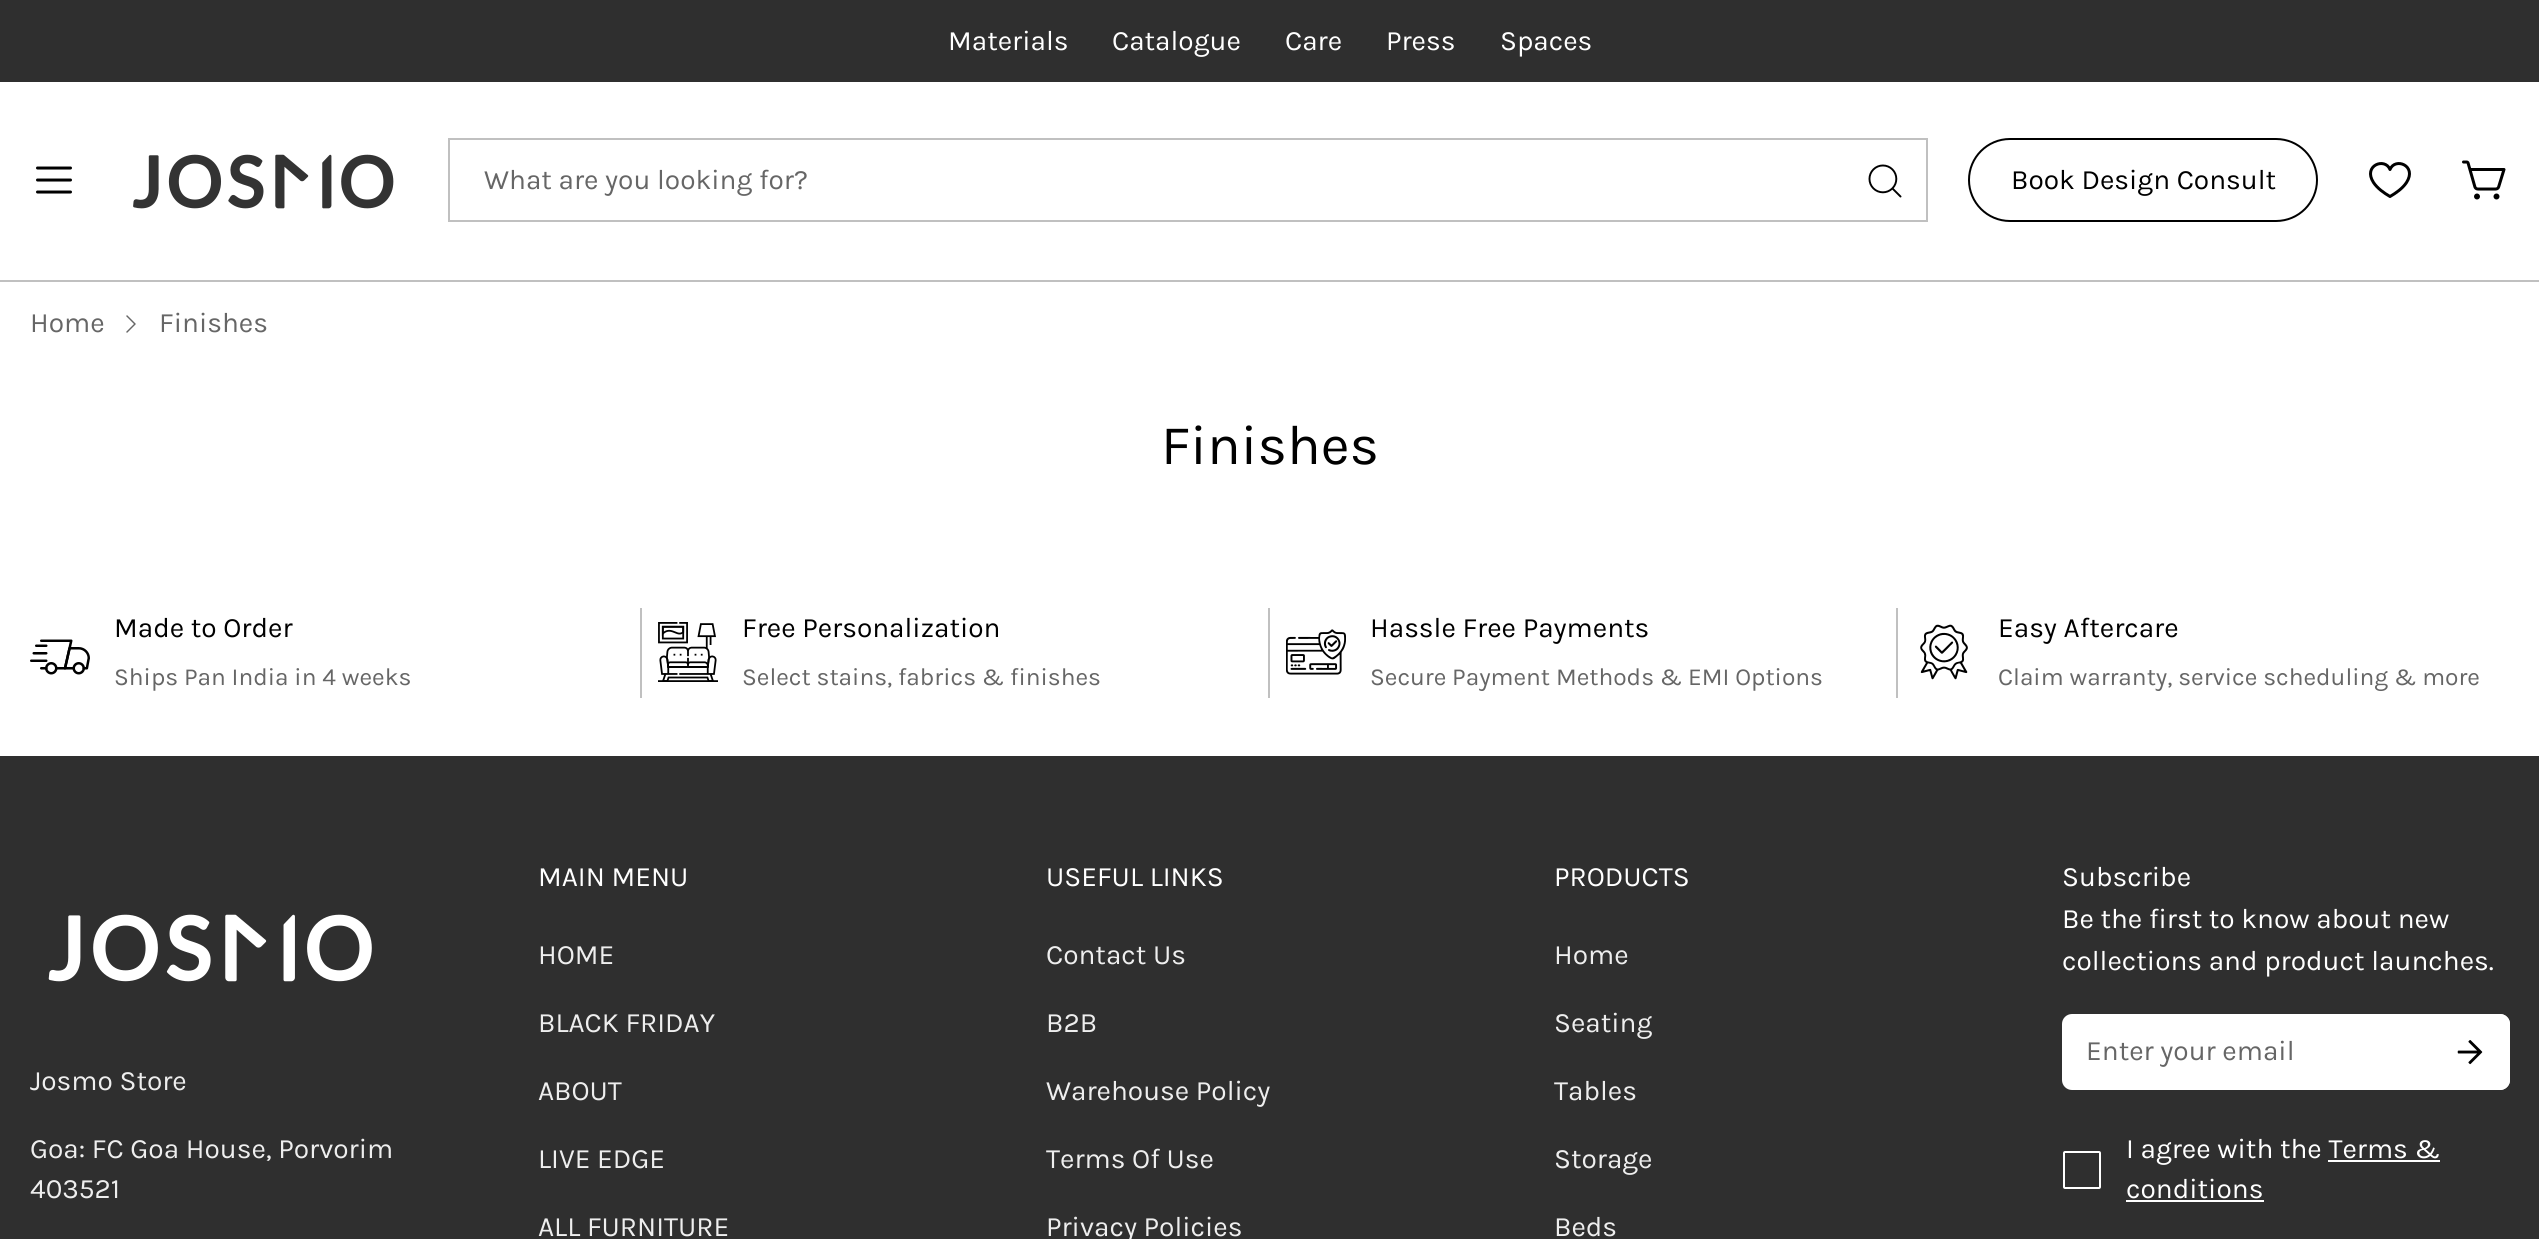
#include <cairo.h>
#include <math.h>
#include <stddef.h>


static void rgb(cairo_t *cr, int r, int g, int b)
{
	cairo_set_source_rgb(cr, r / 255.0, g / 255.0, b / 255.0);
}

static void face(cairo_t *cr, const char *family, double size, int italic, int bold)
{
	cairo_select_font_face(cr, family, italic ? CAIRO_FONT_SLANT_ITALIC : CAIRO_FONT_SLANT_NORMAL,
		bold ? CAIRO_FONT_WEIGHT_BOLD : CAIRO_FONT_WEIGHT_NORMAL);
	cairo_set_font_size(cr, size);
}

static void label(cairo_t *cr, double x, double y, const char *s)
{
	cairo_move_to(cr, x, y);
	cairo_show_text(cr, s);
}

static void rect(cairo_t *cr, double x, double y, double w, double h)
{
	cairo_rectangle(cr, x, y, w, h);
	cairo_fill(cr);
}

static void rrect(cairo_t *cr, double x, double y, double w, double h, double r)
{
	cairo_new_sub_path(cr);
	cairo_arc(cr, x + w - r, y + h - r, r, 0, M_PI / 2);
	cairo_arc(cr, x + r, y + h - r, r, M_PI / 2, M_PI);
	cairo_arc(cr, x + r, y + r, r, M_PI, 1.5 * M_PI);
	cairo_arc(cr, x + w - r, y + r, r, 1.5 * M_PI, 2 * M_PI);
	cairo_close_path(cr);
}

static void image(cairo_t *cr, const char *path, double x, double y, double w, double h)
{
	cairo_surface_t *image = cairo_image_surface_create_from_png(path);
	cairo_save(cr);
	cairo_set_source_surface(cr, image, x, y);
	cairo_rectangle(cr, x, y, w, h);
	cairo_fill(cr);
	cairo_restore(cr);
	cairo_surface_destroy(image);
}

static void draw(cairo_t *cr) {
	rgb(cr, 255, 255, 255);
	cairo_paint(cr);
	rgb(cr, 47, 47, 47);
	rect(cr, 0, 0, 2539, 82);
	face(cr, "Karla", 28, 0, 0);
	rgb(cr, 255, 255, 255);
	label(cr, 948, 50, "Materials");
	label(cr, 1112, 50, "Catalogue");
	label(cr, 1285, 50, "Care");
	label(cr, 1386, 50, "Press");
	label(cr, 1500, 50, "Spaces");
	rgb(cr, 192, 192, 192);
	rect(cr, 0, 280, 2539, 2);
	cairo_new_path(cr);
	cairo_move_to(cr, 37.5, 180);
	cairo_line_to(cr, 70.5, 180);
	cairo_move_to(cr, 37.5, 168);
	cairo_line_to(cr, 70.5, 168);
	cairo_move_to(cr, 37.5, 192);
	cairo_line_to(cr, 70.5, 192);
	rgb(cr, 0, 0, 0);
	cairo_set_line_width(cr, 3);
	cairo_set_line_cap(cr, CAIRO_LINE_CAP_ROUND);
	cairo_set_line_join(cr, CAIRO_LINE_JOIN_ROUND);
	cairo_stroke(cr);
	image(cr, "image0.png", 133, 154, 261, 55);
	cairo_rectangle(cr, 449, 139, 1478, 82);
	rgb(cr, 192, 192, 192);
	cairo_set_line_width(cr, 2);
	cairo_set_line_cap(cr, CAIRO_LINE_CAP_BUTT);
	cairo_set_line_join(cr, CAIRO_LINE_JOIN_MITER);
	cairo_stroke(cr);
	rgb(cr, 102, 102, 102);
	label(cr, 484, 189, "What are you looking for?");
	image(cr, "image1.png", 1868, 164, 34, 34);
	rrect(cr, 1969, 139, 348, 82, 41);
	rgb(cr, 0, 0, 0);
	cairo_stroke(cr);
	label(cr, 2011, 189, "Book Design Consult");
	cairo_new_path(cr);
	cairo_move_to(cr, 2390, 196.5);
	cairo_curve_to(cr, 2384, 193, 2377.5, 188.5, 2373.5, 182.5);
	cairo_curve_to(cr, 2362.5, 165.5, 2385, 157, 2390, 169.5);
	cairo_curve_to(cr, 2395, 157, 2417.5, 165.5, 2406.5, 182.5);
	cairo_curve_to(cr, 2402.5, 188.5, 2396, 193, 2390, 196.5);
	cairo_close_path(cr);
	cairo_set_line_width(cr, 3);
	cairo_set_line_cap(cr, CAIRO_LINE_CAP_ROUND);
	cairo_set_line_join(cr, CAIRO_LINE_JOIN_ROUND);
	cairo_stroke(cr);
	image(cr, "image2.png", 2462, 160, 44, 40);
	rgb(cr, 102, 102, 102);
	label(cr, 30, 332, "Home");
	image(cr, "image3.png", 126, 315, 10, 18);
	label(cr, 159, 332, "Finishes");
	face(cr, "Karla", 56, 0, 0);
	rgb(cr, 0, 0, 0);
	label(cr, 1161, 464, "Finishes");
	image(cr, "image4.png", 30, 639, 60, 36);
	face(cr, "Karla", 28, 0, 0);
	label(cr, 114, 637, "Made to Order");
	face(cr, "Karla", 24.5, 0, 0);
	rgb(cr, 102, 102, 102);
	label(cr, 114, 685, "Ships Pan India in 4 weeks");
	rgb(cr, 192, 192, 192);
	rect(cr, 640, 608, 2, 90);
	image(cr, "image5.png", 658, 622, 60, 60);
	face(cr, "Karla", 28, 0, 0);
	rgb(cr, 0, 0, 0);
	label(cr, 742, 637, "Free Personalization");
	face(cr, "Karla", 24.5, 0, 0);
	rgb(cr, 102, 102, 102);
	label(cr, 742, 685, "Select stains, fabrics & finishes");
	rgb(cr, 192, 192, 192);
	rect(cr, 1268, 608, 2, 90);
	image(cr, "image6.png", 1286, 629, 60, 46);
	face(cr, "Karla", 28, 0, 0);
	rgb(cr, 0, 0, 0);
	label(cr, 1370, 637, "Hassle Free Payments");
	face(cr, "Karla", 24.5, 0, 0);
	rgb(cr, 102, 102, 102);
	label(cr, 1370, 685, "Secure Payment Methods & EMI Options");
	rgb(cr, 192, 192, 192);
	rect(cr, 1896, 608, 2, 90);
	image(cr, "image7.png", 1920, 624, 48, 56);
	face(cr, "Karla", 28, 0, 0);
	rgb(cr, 0, 0, 0);
	label(cr, 1998, 637, "Easy Aftercare");
	face(cr, "Karla", 24.5, 0, 0);
	rgb(cr, 102, 102, 102);
	label(cr, 1998, 685, "Claim warranty, service scheduling & more");
	rgb(cr, 47, 47, 47);
	rect(cr, 0, 756, 2539, 483);
	image(cr, "image8.png", 48, 914, 324, 68);
	face(cr, "Karla", 28, 0, 0);
	rgb(cr, 238, 238, 238);
	label(cr, 30, 1090, "Josmo Store");
	label(cr, 30, 1158, "Goa: FC Goa House, Porvorim");
	label(cr, 30, 1198, "403521");
	rgb(cr, 255, 255, 255);
	label(cr, 538, 886, "MAIN MENU");
	rgb(cr, 238, 238, 238);
	label(cr, 538, 964, "HOME");
	label(cr, 538, 1032, "BLACK FRIDAY");
	label(cr, 538, 1100, "ABOUT");
	label(cr, 538, 1168, "LIVE EDGE");
	label(cr, 538, 1236, "ALL FURNITURE");
	rgb(cr, 255, 255, 255);
	label(cr, 1046, 886, "USEFUL LINKS");
	rgb(cr, 238, 238, 238);
	label(cr, 1046, 964, "Contact Us");
	label(cr, 1046, 1032, "B2B");
	label(cr, 1046, 1100, "Warehouse Policy");
	label(cr, 1046, 1168, "Terms Of Use");
	label(cr, 1046, 1236, "Privacy Policies");
	rgb(cr, 255, 255, 255);
	label(cr, 1554, 886, "PRODUCTS");
	rgb(cr, 238, 238, 238);
	label(cr, 1554, 964, "Home");
	label(cr, 1554, 1032, "Seating");
	label(cr, 1554, 1100, "Tables");
	label(cr, 1554, 1168, "Storage");
	label(cr, 1554, 1236, "Beds");
	rgb(cr, 255, 255, 255);
	label(cr, 2062, 886, "Subscribe");
	label(cr, 2062, 928, "Be the first to know about new");
	label(cr, 2062, 970, "collections and product launches.");
	rrect(cr, 2062, 1014, 448, 76, 10);
	cairo_fill(cr);
	rgb(cr, 102, 102, 102);
	label(cr, 2086, 1060, "Enter your email");
	rgb(cr, 255, 255, 255);
	cairo_new_path(cr);
	cairo_move_to(cr, 2424, 1014);
	cairo_line_to(cr, 2500, 1014);
	cairo_curve_to(cr, 2505.5, 1014, 2510, 1018.5, 2510, 1024);
	cairo_line_to(cr, 2510, 1080);
	cairo_curve_to(cr, 2510, 1085.5, 2505.5, 1090, 2500, 1090);
	cairo_line_to(cr, 2424, 1090);
	cairo_close_path(cr);
	cairo_fill(cr);
	image(cr, "image9.png", 2457, 1040, 26, 25);
	image(cr, "image10.png", 2063, 1151, 38, 38);
	label(cr, 2126, 1158, "I agree with the Terms &");
	label(cr, 2126, 1198, "conditions");
	rect(cr, 2328, 1160, 112, 2);
	rect(cr, 2126, 1200, 138, 2);
}

int main(void) {
	cairo_surface_t *surface = cairo_image_surface_create(CAIRO_FORMAT_RGB24, 2539, 1239);
	cairo_t *cr = cairo_create(surface);
	cairo_font_options_t *options = cairo_font_options_create();
	cairo_font_options_set_hint_metrics(options, CAIRO_HINT_METRICS_OFF);
	cairo_font_options_set_hint_style(options, CAIRO_HINT_STYLE_NONE);
	cairo_set_font_options(cr, options);
	cairo_set_miter_limit(cr, 4);
	draw(cr);
	cairo_surface_write_to_png(surface, "render.png");
	cairo_font_options_destroy(options);
	cairo_destroy(cr);
	cairo_surface_destroy(surface);
	return 0;
}
